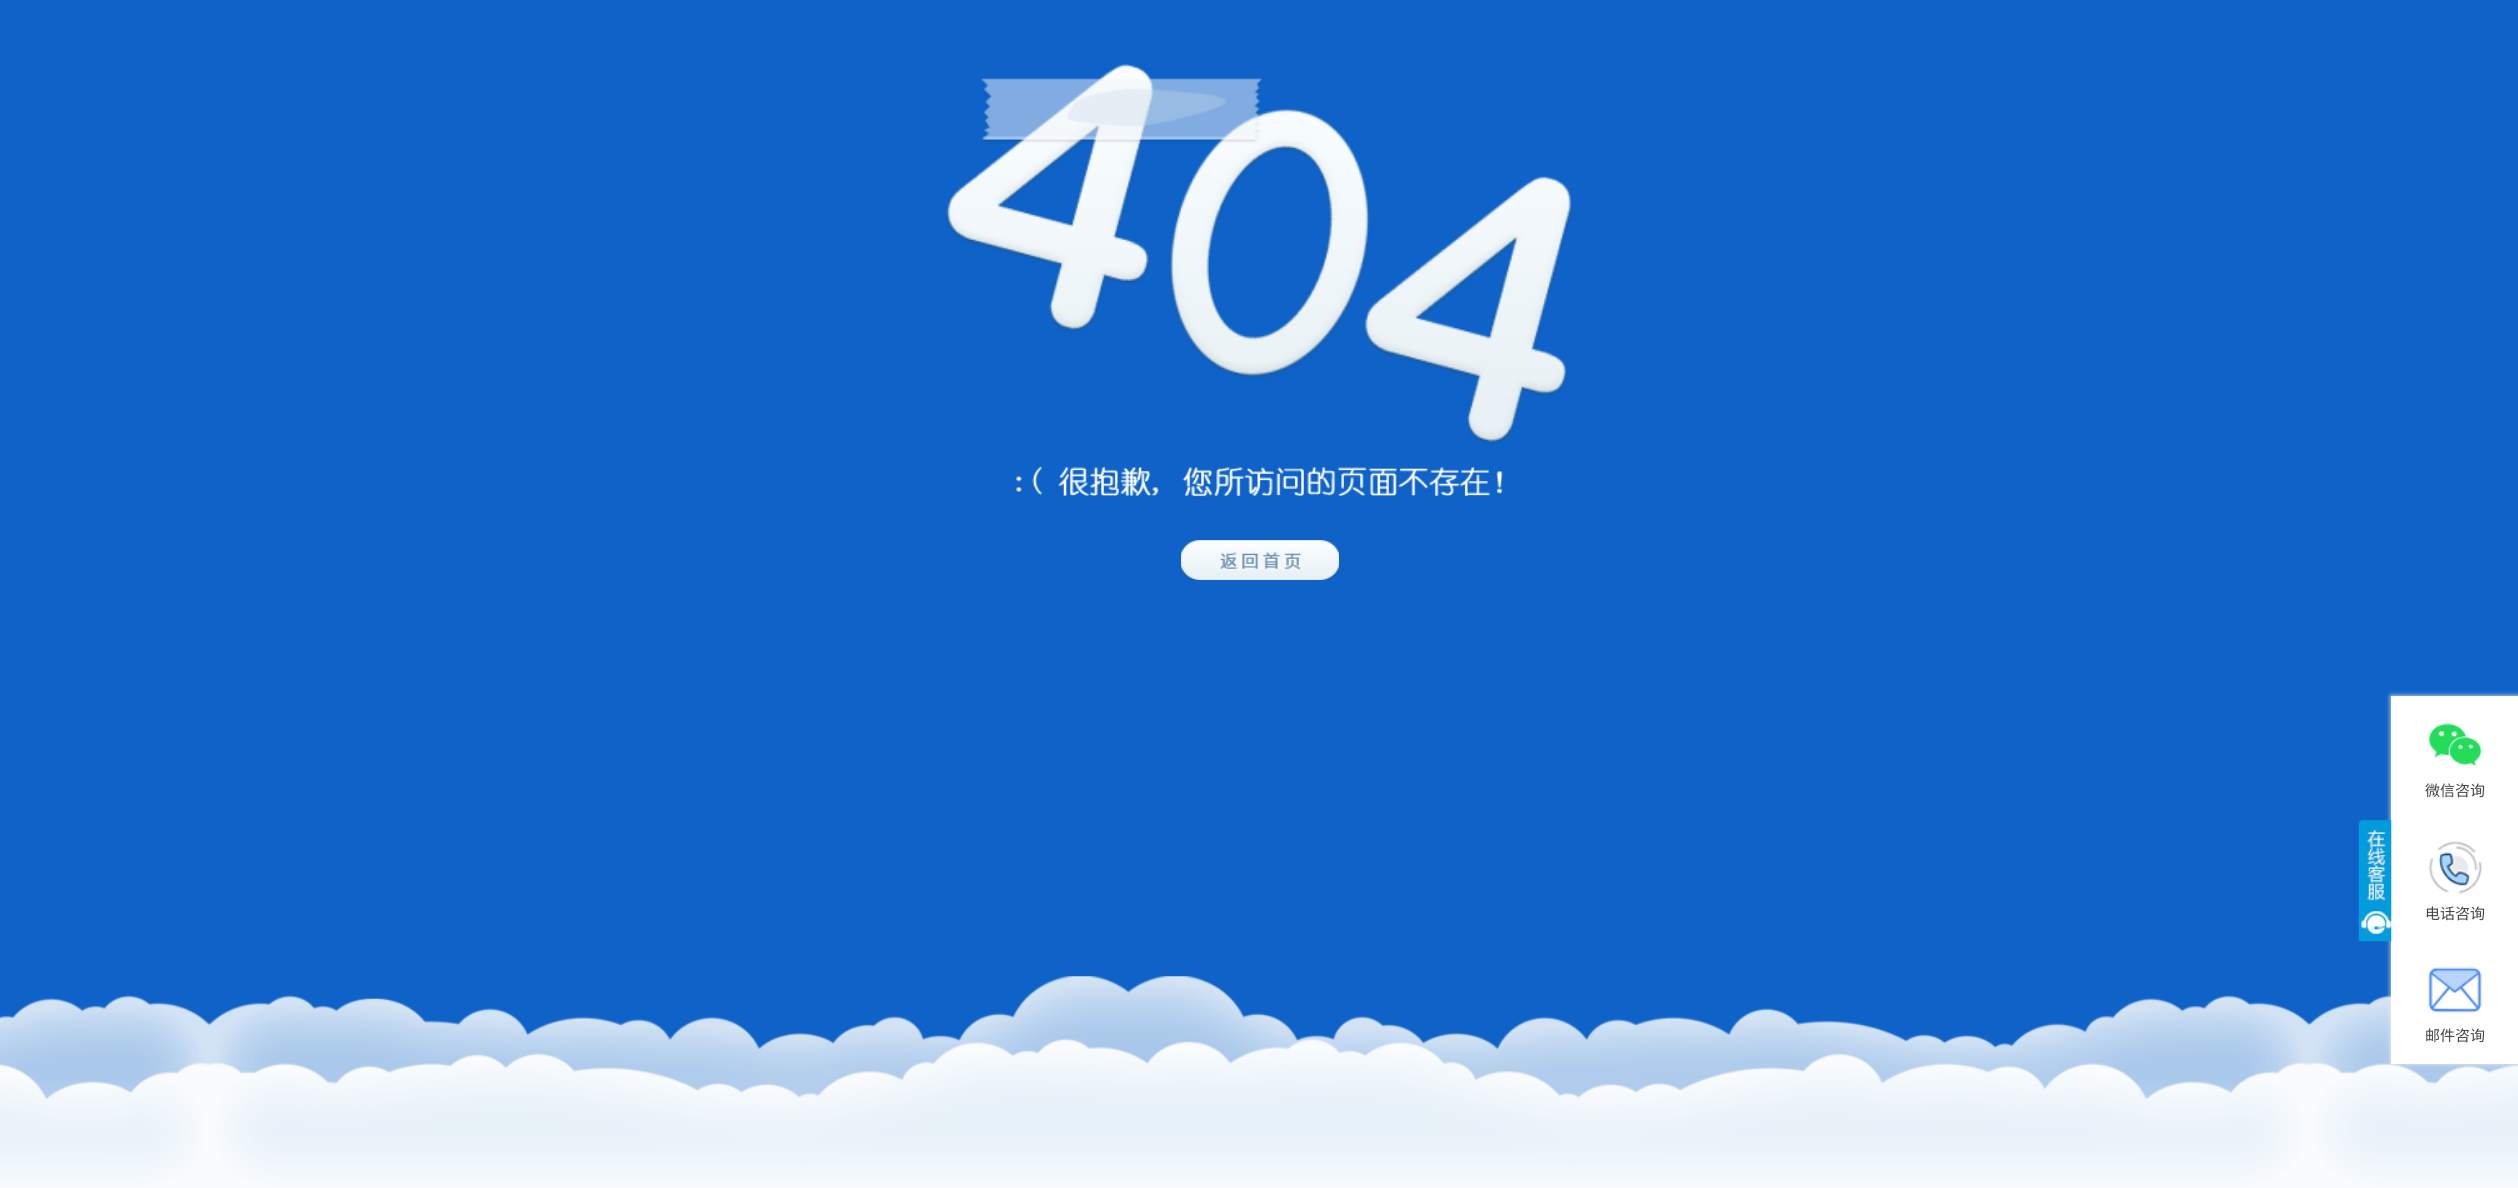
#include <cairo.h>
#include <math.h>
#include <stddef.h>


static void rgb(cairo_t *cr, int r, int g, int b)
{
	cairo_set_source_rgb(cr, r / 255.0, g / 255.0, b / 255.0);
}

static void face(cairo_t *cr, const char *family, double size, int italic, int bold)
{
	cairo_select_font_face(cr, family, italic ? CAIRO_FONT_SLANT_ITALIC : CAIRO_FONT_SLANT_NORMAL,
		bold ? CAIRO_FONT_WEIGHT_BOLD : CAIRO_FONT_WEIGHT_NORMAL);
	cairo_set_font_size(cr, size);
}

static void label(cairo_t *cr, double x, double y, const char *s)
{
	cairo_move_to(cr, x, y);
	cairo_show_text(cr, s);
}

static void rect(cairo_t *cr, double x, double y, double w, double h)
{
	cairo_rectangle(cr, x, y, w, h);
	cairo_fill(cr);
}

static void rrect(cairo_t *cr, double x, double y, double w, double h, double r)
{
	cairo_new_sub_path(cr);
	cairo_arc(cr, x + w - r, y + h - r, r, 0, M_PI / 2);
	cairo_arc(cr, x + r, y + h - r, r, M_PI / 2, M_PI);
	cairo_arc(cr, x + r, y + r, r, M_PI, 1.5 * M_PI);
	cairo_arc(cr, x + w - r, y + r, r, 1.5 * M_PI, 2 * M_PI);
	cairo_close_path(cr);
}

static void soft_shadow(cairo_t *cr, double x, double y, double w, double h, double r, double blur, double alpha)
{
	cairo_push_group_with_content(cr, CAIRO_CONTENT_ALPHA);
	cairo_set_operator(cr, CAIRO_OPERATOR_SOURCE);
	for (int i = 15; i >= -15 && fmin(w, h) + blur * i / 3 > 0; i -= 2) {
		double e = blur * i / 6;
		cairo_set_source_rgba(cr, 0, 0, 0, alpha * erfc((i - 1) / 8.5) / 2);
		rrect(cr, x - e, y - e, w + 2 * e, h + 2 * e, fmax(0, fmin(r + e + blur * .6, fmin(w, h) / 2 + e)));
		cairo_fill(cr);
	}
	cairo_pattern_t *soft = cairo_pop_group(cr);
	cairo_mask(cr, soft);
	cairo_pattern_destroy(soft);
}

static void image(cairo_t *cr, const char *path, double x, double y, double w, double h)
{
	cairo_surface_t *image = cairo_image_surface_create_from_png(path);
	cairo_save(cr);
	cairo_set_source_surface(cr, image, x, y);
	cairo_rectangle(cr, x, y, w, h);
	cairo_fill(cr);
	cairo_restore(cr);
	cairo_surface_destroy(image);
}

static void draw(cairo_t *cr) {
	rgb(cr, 14, 98, 200);
	cairo_paint(cr);
	image(cr, "image0.png", 0, 976, 2518, 212);
	image(cr, "image1.png", 946, 63, 626, 382);
	image(cr, "image2.png", 1016, 466, 487, 31);
	image(cr, "image3.png", 1181, 540, 158, 40);
	rgb(cr, 238, 238, 238);
	soft_shadow(cr, 2391, 696, 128, 368, 0, 2.5, 1);
	rgb(cr, 255, 255, 255);
	rect(cr, 2391, 696, 127, 368);
	image(cr, "image4.png", 2358, 819, 34, 123);
	image(cr, "image5.png", 2428, 723, 54, 44);
	face(cr, "Noto Sans CJK SC", 15, 0, 0);
	rgb(cr, 68, 68, 68);
	label(cr, 2425, 796, "微信咨询");
	image(cr, "image6.png", 2428, 841, 54, 53);
	label(cr, 2425, 919, "电话咨询");
	image(cr, "image7.png", 2428, 967, 54, 46);
	label(cr, 2425, 1041, "邮件咨询");
}

int main(void) {
	cairo_surface_t *surface = cairo_image_surface_create(CAIRO_FORMAT_RGB24, 2518, 1188);
	cairo_t *cr = cairo_create(surface);
	cairo_font_options_t *options = cairo_font_options_create();
	cairo_font_options_set_hint_metrics(options, CAIRO_HINT_METRICS_OFF);
	cairo_font_options_set_hint_style(options, CAIRO_HINT_STYLE_NONE);
	cairo_set_font_options(cr, options);
	cairo_set_miter_limit(cr, 4);
	draw(cr);
	cairo_surface_write_to_png(surface, "render.png");
	cairo_font_options_destroy(options);
	cairo_destroy(cr);
	cairo_surface_destroy(surface);
	return 0;
}
